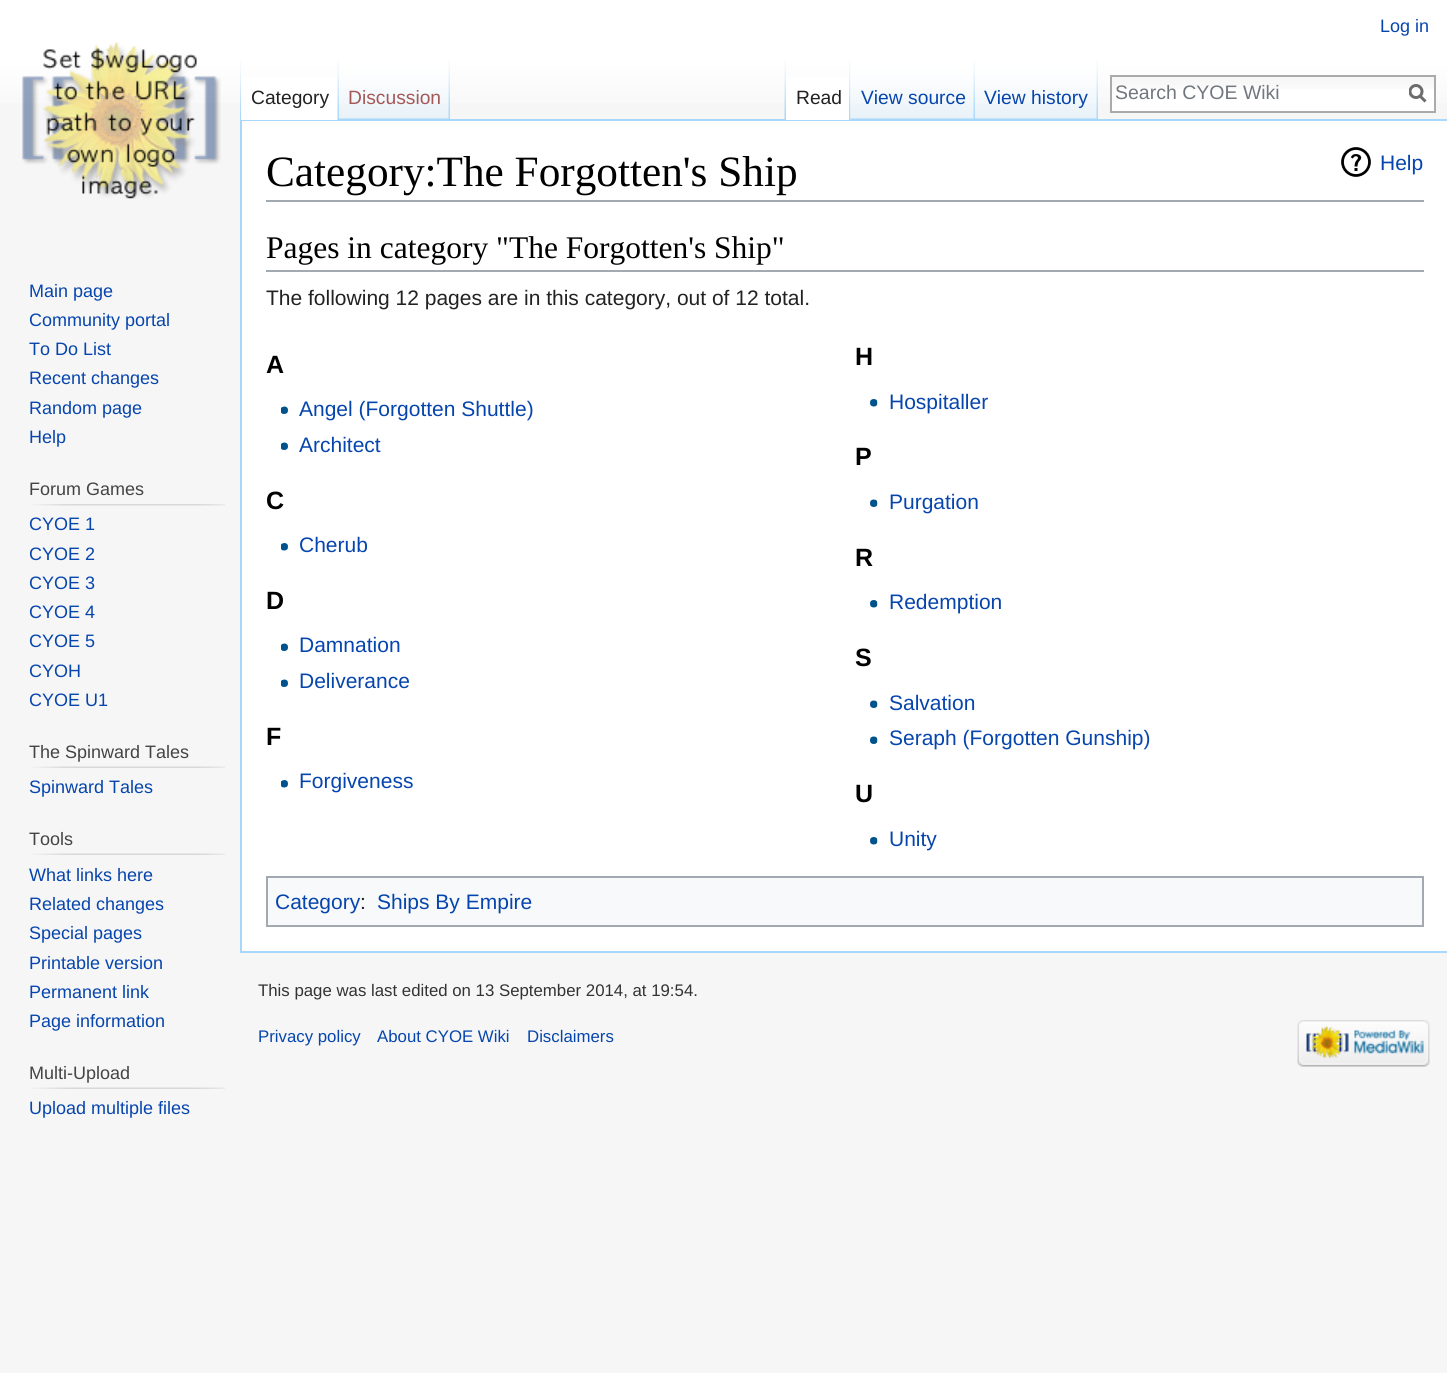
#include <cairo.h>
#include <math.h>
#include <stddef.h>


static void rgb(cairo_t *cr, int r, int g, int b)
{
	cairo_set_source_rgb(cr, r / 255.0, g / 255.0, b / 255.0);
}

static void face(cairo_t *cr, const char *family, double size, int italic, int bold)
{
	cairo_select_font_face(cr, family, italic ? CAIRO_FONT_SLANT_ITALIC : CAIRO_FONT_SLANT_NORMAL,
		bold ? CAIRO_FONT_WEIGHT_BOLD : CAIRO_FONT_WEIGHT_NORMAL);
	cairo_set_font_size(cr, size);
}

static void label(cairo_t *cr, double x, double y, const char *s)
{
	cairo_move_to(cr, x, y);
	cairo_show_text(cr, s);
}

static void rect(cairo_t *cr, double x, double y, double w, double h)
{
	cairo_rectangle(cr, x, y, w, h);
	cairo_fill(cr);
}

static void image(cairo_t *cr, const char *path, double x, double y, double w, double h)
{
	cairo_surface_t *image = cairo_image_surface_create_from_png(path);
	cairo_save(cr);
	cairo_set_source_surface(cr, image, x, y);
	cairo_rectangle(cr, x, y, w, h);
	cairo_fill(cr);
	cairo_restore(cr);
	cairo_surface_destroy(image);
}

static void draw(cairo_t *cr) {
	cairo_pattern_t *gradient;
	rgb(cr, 246, 246, 246);
	cairo_paint(cr);
	gradient = cairo_pattern_create_linear(724, 0, 724, 120);
	cairo_pattern_add_color_stop_rgba(gradient, 0.5, 1, 1, 1, 1);
	cairo_pattern_add_color_stop_rgba(gradient, 1, 0.965, 0.965, 0.965, 1);
	cairo_set_source(cr, gradient);
	cairo_pattern_destroy(gradient);
	rect(cr, 0, 0, 1447, 103);
	face(cr, "Liberation Sans", 18, 0, 0);
	rgb(cr, 6, 69, 173);
	label(cr, 1380, 32, "Log in");
	image(cr, "image0.png", 240, 60, 1, 59);
	rgb(cr, 167, 215, 249);
	rect(cr, 240, 119, 1207, 2);
	rect(cr, 240, 951, 1207, 2);
	rect(cr, 240, 119, 2, 834);
	rgb(cr, 255, 255, 255);
	rect(cr, 241, 77, 97, 43);
	image(cr, "image1.png", 337, 60, 2, 60);
	face(cr, "Liberation Sans", 19.25, 0, 0);
	rgb(cr, 34, 34, 34);
	label(cr, 251, 104, "Category");
	image(cr, "image2.png", 339, 60, 111, 60);
	image(cr, "image3.png", 448, 60, 2, 59);
	rgb(cr, 165, 88, 88);
	label(cr, 348, 104, "Discussion");
	image(cr, "image4.png", 784, 60, 2, 59);
	rgb(cr, 255, 255, 255);
	rect(cr, 786, 77, 65, 43);
	image(cr, "image5.png", 849, 60, 2, 60);
	rgb(cr, 34, 34, 34);
	label(cr, 796, 104, "Read");
	image(cr, "image6.png", 850, 60, 125, 60);
	image(cr, "image3.png", 973, 60, 2, 59);
	rgb(cr, 6, 69, 173);
	label(cr, 861, 104, "View source");
	image(cr, "image7.png", 975, 60, 123, 60);
	image(cr, "image3.png", 1096, 60, 2, 59);
	label(cr, 984, 104, "View history");
	rgb(cr, 255, 255, 255);
	rect(cr, 1112, 89, 322, 22);
	image(cr, "image8.png", 1112, 77, 322, 12);
	cairo_rectangle(cr, 1111, 76, 324, 36);
	rgb(cr, 170, 170, 170);
	cairo_stroke(cr);
	face(cr, "Liberation Sans", 19.5, 0, 0);
	rgb(cr, 114, 119, 125);
	label(cr, 1115, 99, "Search CYOE Wiki");
	cairo_new_path(cr);
	cairo_move_to(cr, 1425.5, 101.5);
	cairo_line_to(cr, 1419.5, 95.5);
	rgb(cr, 108, 108, 108);
	cairo_set_line_width(cr, 3);
	cairo_stroke(cr);
	cairo_save(cr);
	cairo_rectangle(cr, 1409, 84, 18, 20);
	cairo_clip(cr);
	cairo_arc(cr, 1416, 91.5, 6, 0, 2 * M_PI);
	cairo_stroke(cr);
	cairo_restore(cr);
	image(cr, "image9.png", 22, 42, 199, 157);
	face(cr, "Liberation Sans", 18, 0, 0);
	rgb(cr, 6, 69, 173);
	label(cr, 29, 297, "Main page");
	label(cr, 29, 326, "Community portal");
	label(cr, 29, 355, "To Do List");
	label(cr, 29, 384, "Recent changes");
	label(cr, 29, 414, "Random page");
	label(cr, 29, 443, "Help");
	rgb(cr, 68, 68, 68);
	label(cr, 29, 495, "Forum Games");
	image(cr, "image10.png", 32, 504, 193, 2);
	rgb(cr, 6, 69, 173);
	label(cr, 29, 530, "CYOE 1");
	label(cr, 29, 560, "CYOE 2");
	label(cr, 29, 589, "CYOE 3");
	label(cr, 29, 618, "CYOE 4");
	label(cr, 29, 647, "CYOE 5");
	label(cr, 29, 677, "CYOH");
	label(cr, 29, 706, "CYOE U1");
	rgb(cr, 68, 68, 68);
	label(cr, 29, 758, "The Spinward Tales");
	image(cr, "image11.png", 32, 766, 193, 2);
	rgb(cr, 6, 69, 173);
	label(cr, 29, 793, "Spinward Tales");
	rgb(cr, 68, 68, 68);
	label(cr, 29, 845, "Tools");
	image(cr, "image11.png", 32, 853, 193, 2);
	rgb(cr, 6, 69, 173);
	label(cr, 29, 881, "What links here");
	label(cr, 29, 910, "Related changes");
	label(cr, 29, 939, "Special pages");
	label(cr, 29, 969, "Printable version");
	label(cr, 29, 998, "Permanent link");
	label(cr, 29, 1027, "Page information");
	rgb(cr, 68, 68, 68);
	label(cr, 29, 1079, "Multi-Upload");
	image(cr, "image11.png", 32, 1087, 193, 2);
	rgb(cr, 6, 69, 173);
	label(cr, 29, 1114, "Upload multiple files");
	rgb(cr, 255, 255, 255);
	rect(cr, 242, 121, 1205, 830);
	rgb(cr, 162, 169, 177);
	rect(cr, 266, 200, 1158, 2);
	face(cr, "Liberation Serif", 43.25, 0, 0);
	rgb(cr, 0, 0, 0);
	label(cr, 266, 186, "Category:The Forgotten's Ship");
	image(cr, "image12.png", 1341, 147, 30, 30);
	face(cr, "Liberation Sans", 21, 0, 0);
	rgb(cr, 6, 69, 173);
	label(cr, 1380, 170, "Help");
	rgb(cr, 162, 169, 177);
	rect(cr, 266, 270, 1158, 2);
	face(cr, "Liberation Serif", 31.5, 0, 0);
	rgb(cr, 0, 0, 0);
	label(cr, 266, 258, "Pages in category \"The Forgotten's Ship\"");
	face(cr, "Liberation Sans", 21, 0, 0);
	rgb(cr, 34, 34, 34);
	label(cr, 266, 305, "The following 12 pages are in this category, out of 12 total.");
	face(cr, "Liberation Sans", 25, 0, 1);
	rgb(cr, 0, 0, 0);
	label(cr, 266, 373, "A");
	image(cr, "image13.png", 281, 406, 7, 8);
	face(cr, "Liberation Sans", 21, 0, 0);
	rgb(cr, 6, 69, 173);
	label(cr, 299, 416, "Angel (Forgotten Shuttle)");
	image(cr, "image13.png", 281, 442, 7, 8);
	label(cr, 299, 452, "Architect");
	face(cr, "Liberation Sans", 25, 0, 1);
	rgb(cr, 0, 0, 0);
	label(cr, 855, 365, "H");
	image(cr, "image14.png", 870, 399, 8, 8);
	face(cr, "Liberation Sans", 21, 0, 0);
	rgb(cr, 6, 69, 173);
	label(cr, 889, 409, "Hospitaller");
	face(cr, "Liberation Sans", 25, 0, 1);
	rgb(cr, 0, 0, 0);
	label(cr, 855, 465, "P");
	image(cr, "image15.png", 870, 499, 8, 8);
	face(cr, "Liberation Sans", 21, 0, 0);
	rgb(cr, 6, 69, 173);
	label(cr, 889, 509, "Purgation");
	face(cr, "Liberation Sans", 25, 0, 1);
	rgb(cr, 0, 0, 0);
	label(cr, 266, 509, "C");
	image(cr, "image16.png", 281, 543, 7, 8);
	face(cr, "Liberation Sans", 21, 0, 0);
	rgb(cr, 6, 69, 173);
	label(cr, 299, 552, "Cherub");
	face(cr, "Liberation Sans", 25, 0, 1);
	rgb(cr, 0, 0, 0);
	label(cr, 855, 566, "R");
	image(cr, "image14.png", 870, 600, 8, 8);
	face(cr, "Liberation Sans", 21, 0, 0);
	rgb(cr, 6, 69, 173);
	label(cr, 889, 609, "Redemption");
	face(cr, "Liberation Sans", 25, 0, 1);
	rgb(cr, 0, 0, 0);
	label(cr, 266, 609, "D");
	image(cr, "image13.png", 281, 643, 7, 8);
	face(cr, "Liberation Sans", 21, 0, 0);
	rgb(cr, 6, 69, 173);
	label(cr, 299, 652, "Damnation");
	image(cr, "image13.png", 281, 679, 7, 8);
	label(cr, 299, 688, "Deliverance");
	face(cr, "Liberation Sans", 25, 0, 1);
	rgb(cr, 0, 0, 0);
	label(cr, 855, 666, "S");
	image(cr, "image15.png", 870, 700, 8, 8);
	face(cr, "Liberation Sans", 21, 0, 0);
	rgb(cr, 6, 69, 173);
	label(cr, 889, 710, "Salvation");
	image(cr, "image15.png", 870, 736, 8, 8);
	label(cr, 889, 745, "Seraph (Forgotten Gunship)");
	face(cr, "Liberation Sans", 25, 0, 1);
	rgb(cr, 0, 0, 0);
	label(cr, 266, 745, "F");
	image(cr, "image16.png", 281, 780, 7, 8);
	face(cr, "Liberation Sans", 21, 0, 0);
	rgb(cr, 6, 69, 173);
	label(cr, 299, 788, "Forgiveness");
	face(cr, "Liberation Sans", 25, 0, 1);
	rgb(cr, 0, 0, 0);
	label(cr, 855, 802, "U");
	image(cr, "image14.png", 870, 837, 8, 8);
	face(cr, "Liberation Sans", 21, 0, 0);
	rgb(cr, 6, 69, 173);
	label(cr, 889, 846, "Unity");
	rgb(cr, 248, 249, 250);
	cairo_rectangle(cr, 267, 877, 1156, 49);
	cairo_fill_preserve(cr);
	rgb(cr, 162, 169, 177);
	cairo_set_line_width(cr, 2);
	cairo_stroke(cr);
	rgb(cr, 6, 69, 173);
	label(cr, 275, 909, "Category");
	rgb(cr, 34, 34, 34);
	label(cr, 360, 909, ":");
	rgb(cr, 6, 69, 173);
	label(cr, 377, 909, "Ships By Empire");
	face(cr, "Liberation Sans", 16.8, 0, 0);
	rgb(cr, 51, 51, 51);
	label(cr, 258, 996, "This page was last edited on 13 September 2014, at 19:54.");
	rgb(cr, 6, 69, 173);
	label(cr, 258, 1042, "Privacy policy");
	label(cr, 377, 1042, "About CYOE Wiki");
	label(cr, 527, 1042, "Disclaimers");
	image(cr, "image17.png", 1297, 1020, 133, 47);
}

int main(void) {
	cairo_surface_t *surface = cairo_image_surface_create(CAIRO_FORMAT_RGB24, 1447, 1373);
	cairo_t *cr = cairo_create(surface);
	cairo_font_options_t *options = cairo_font_options_create();
	cairo_font_options_set_hint_metrics(options, CAIRO_HINT_METRICS_OFF);
	cairo_font_options_set_hint_style(options, CAIRO_HINT_STYLE_NONE);
	cairo_set_font_options(cr, options);
	cairo_set_miter_limit(cr, 4);
	draw(cr);
	cairo_surface_write_to_png(surface, "render.png");
	cairo_font_options_destroy(options);
	cairo_destroy(cr);
	cairo_surface_destroy(surface);
	return 0;
}
